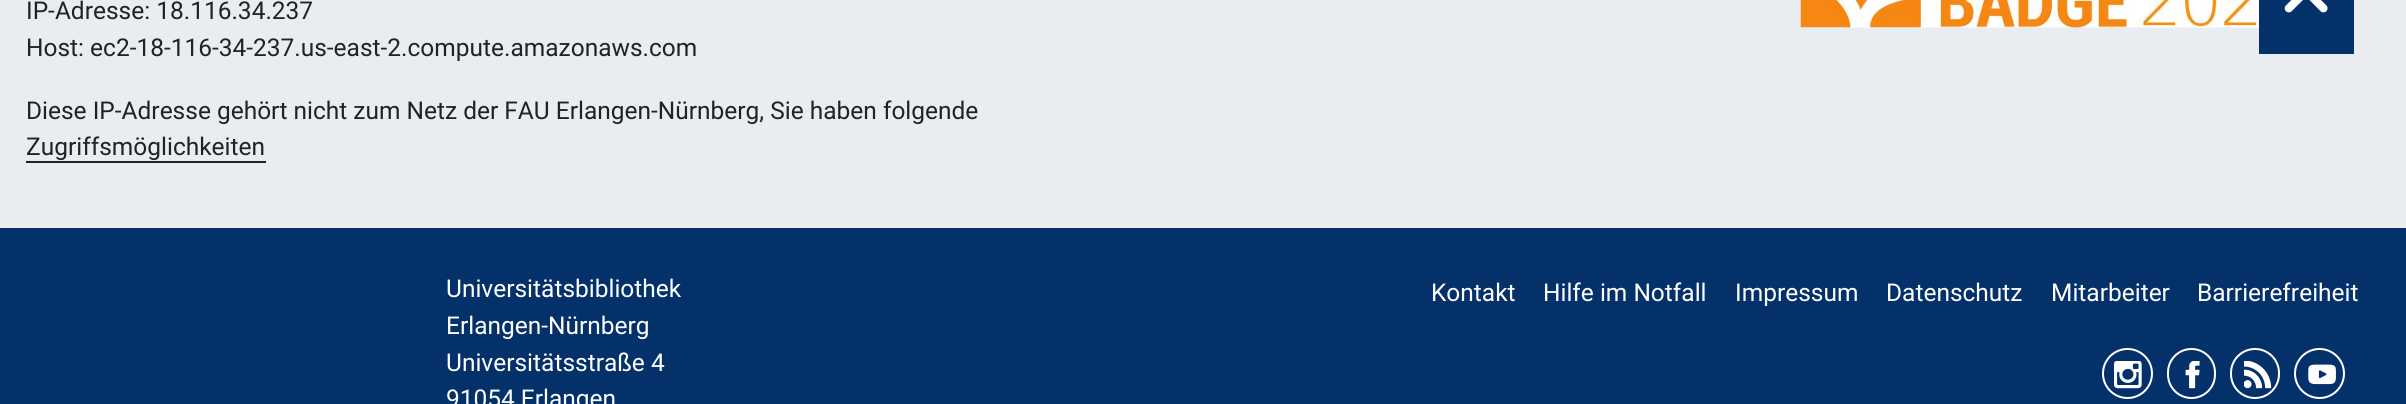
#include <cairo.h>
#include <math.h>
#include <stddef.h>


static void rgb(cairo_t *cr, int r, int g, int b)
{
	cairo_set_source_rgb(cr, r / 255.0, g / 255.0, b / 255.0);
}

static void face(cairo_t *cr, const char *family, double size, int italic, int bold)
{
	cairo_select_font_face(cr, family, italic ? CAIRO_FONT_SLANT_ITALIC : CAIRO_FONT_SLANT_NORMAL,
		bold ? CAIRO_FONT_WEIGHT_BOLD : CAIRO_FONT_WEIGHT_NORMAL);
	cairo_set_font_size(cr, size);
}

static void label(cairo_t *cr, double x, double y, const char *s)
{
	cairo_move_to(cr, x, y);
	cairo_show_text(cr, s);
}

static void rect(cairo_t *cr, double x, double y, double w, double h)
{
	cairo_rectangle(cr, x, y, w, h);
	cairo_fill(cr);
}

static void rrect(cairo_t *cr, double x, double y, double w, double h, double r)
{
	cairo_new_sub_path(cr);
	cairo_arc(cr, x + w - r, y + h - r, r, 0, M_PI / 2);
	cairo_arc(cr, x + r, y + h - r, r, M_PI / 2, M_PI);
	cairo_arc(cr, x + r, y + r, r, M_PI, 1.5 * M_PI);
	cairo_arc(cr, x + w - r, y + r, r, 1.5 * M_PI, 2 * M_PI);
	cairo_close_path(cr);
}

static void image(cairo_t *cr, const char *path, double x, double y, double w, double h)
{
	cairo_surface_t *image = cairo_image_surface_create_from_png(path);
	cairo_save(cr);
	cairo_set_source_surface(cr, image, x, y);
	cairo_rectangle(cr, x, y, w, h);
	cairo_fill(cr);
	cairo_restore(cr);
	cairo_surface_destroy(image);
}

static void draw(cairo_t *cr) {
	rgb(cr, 233, 237, 242);
	cairo_paint(cr);
	face(cr, "Roboto", 24.5, 0, 0);
	rgb(cr, 34, 34, 34);
	label(cr, 26, 19, "IP-Adresse: 18.116.34.237");
	label(cr, 26, 56, "Host: ec2-18-116-34-237.us-east-2.compute.amazonaws.com");
	label(cr, 26, 119, "Diese IP-Adresse gehört nicht zum Netz der FAU Erlangen-Nürnberg, Sie haben folgende");
	label(cr, 26, 155, "Zugriffsmöglichkeiten");
	rect(cr, 26, 161, 240, 2);
	image(cr, "image0.png", 1800, 0, 459, 28);
	rgb(cr, 4, 49, 106);
	rect(cr, 0, 228, 2406, 176);
	rect(cr, 2259, 0, 95, 54);
	image(cr, "image1.png", 2284, 0, 44, 13);
	rgb(cr, 255, 255, 255);
	label(cr, 446, 297, "Universitätsbibliothek");
	label(cr, 446, 334, "Erlangen-Nürnberg");
	label(cr, 446, 371, "Universitätsstraße 4");
	label(cr, 446, 407, "91054 Erlangen");
	label(cr, 1431, 301, "Kontakt");
	label(cr, 1543, 301, "Hilfe im Notfall");
	label(cr, 1735, 301, "Impressum");
	label(cr, 1886, 301, "Datenschutz");
	label(cr, 2051, 301, "Mitarbeiter");
	label(cr, 2197, 301, "Barrierefreiheit");
	cairo_new_path(cr);
	cairo_arc(cr, 2127.5, 373.5, 24.5, 0, 2 * M_PI);
	cairo_stroke(cr);
	image(cr, "image2.png", 2114, 361, 28, 28);
	rrect(cr, 2168, 349, 47, 49, 23.5);
	cairo_stroke(cr);
	image(cr, "image3.png", 2185, 361, 15, 28);
	rrect(cr, 2231, 349, 48, 49, 24);
	cairo_stroke(cr);
	image(cr, "image4.png", 2244, 361, 28, 28);
	cairo_arc(cr, 2319.5, 373.5, 24.5, 0, 2 * M_PI);
	cairo_stroke(cr);
	image(cr, "image5.png", 2308, 364, 28, 21);
}

int main(void) {
	cairo_surface_t *surface = cairo_image_surface_create(CAIRO_FORMAT_RGB24, 2406, 404);
	cairo_t *cr = cairo_create(surface);
	cairo_font_options_t *options = cairo_font_options_create();
	cairo_font_options_set_hint_metrics(options, CAIRO_HINT_METRICS_OFF);
	cairo_font_options_set_hint_style(options, CAIRO_HINT_STYLE_NONE);
	cairo_set_font_options(cr, options);
	cairo_set_miter_limit(cr, 4);
	draw(cr);
	cairo_surface_write_to_png(surface, "render.png");
	cairo_font_options_destroy(options);
	cairo_destroy(cr);
	cairo_surface_destroy(surface);
	return 0;
}
